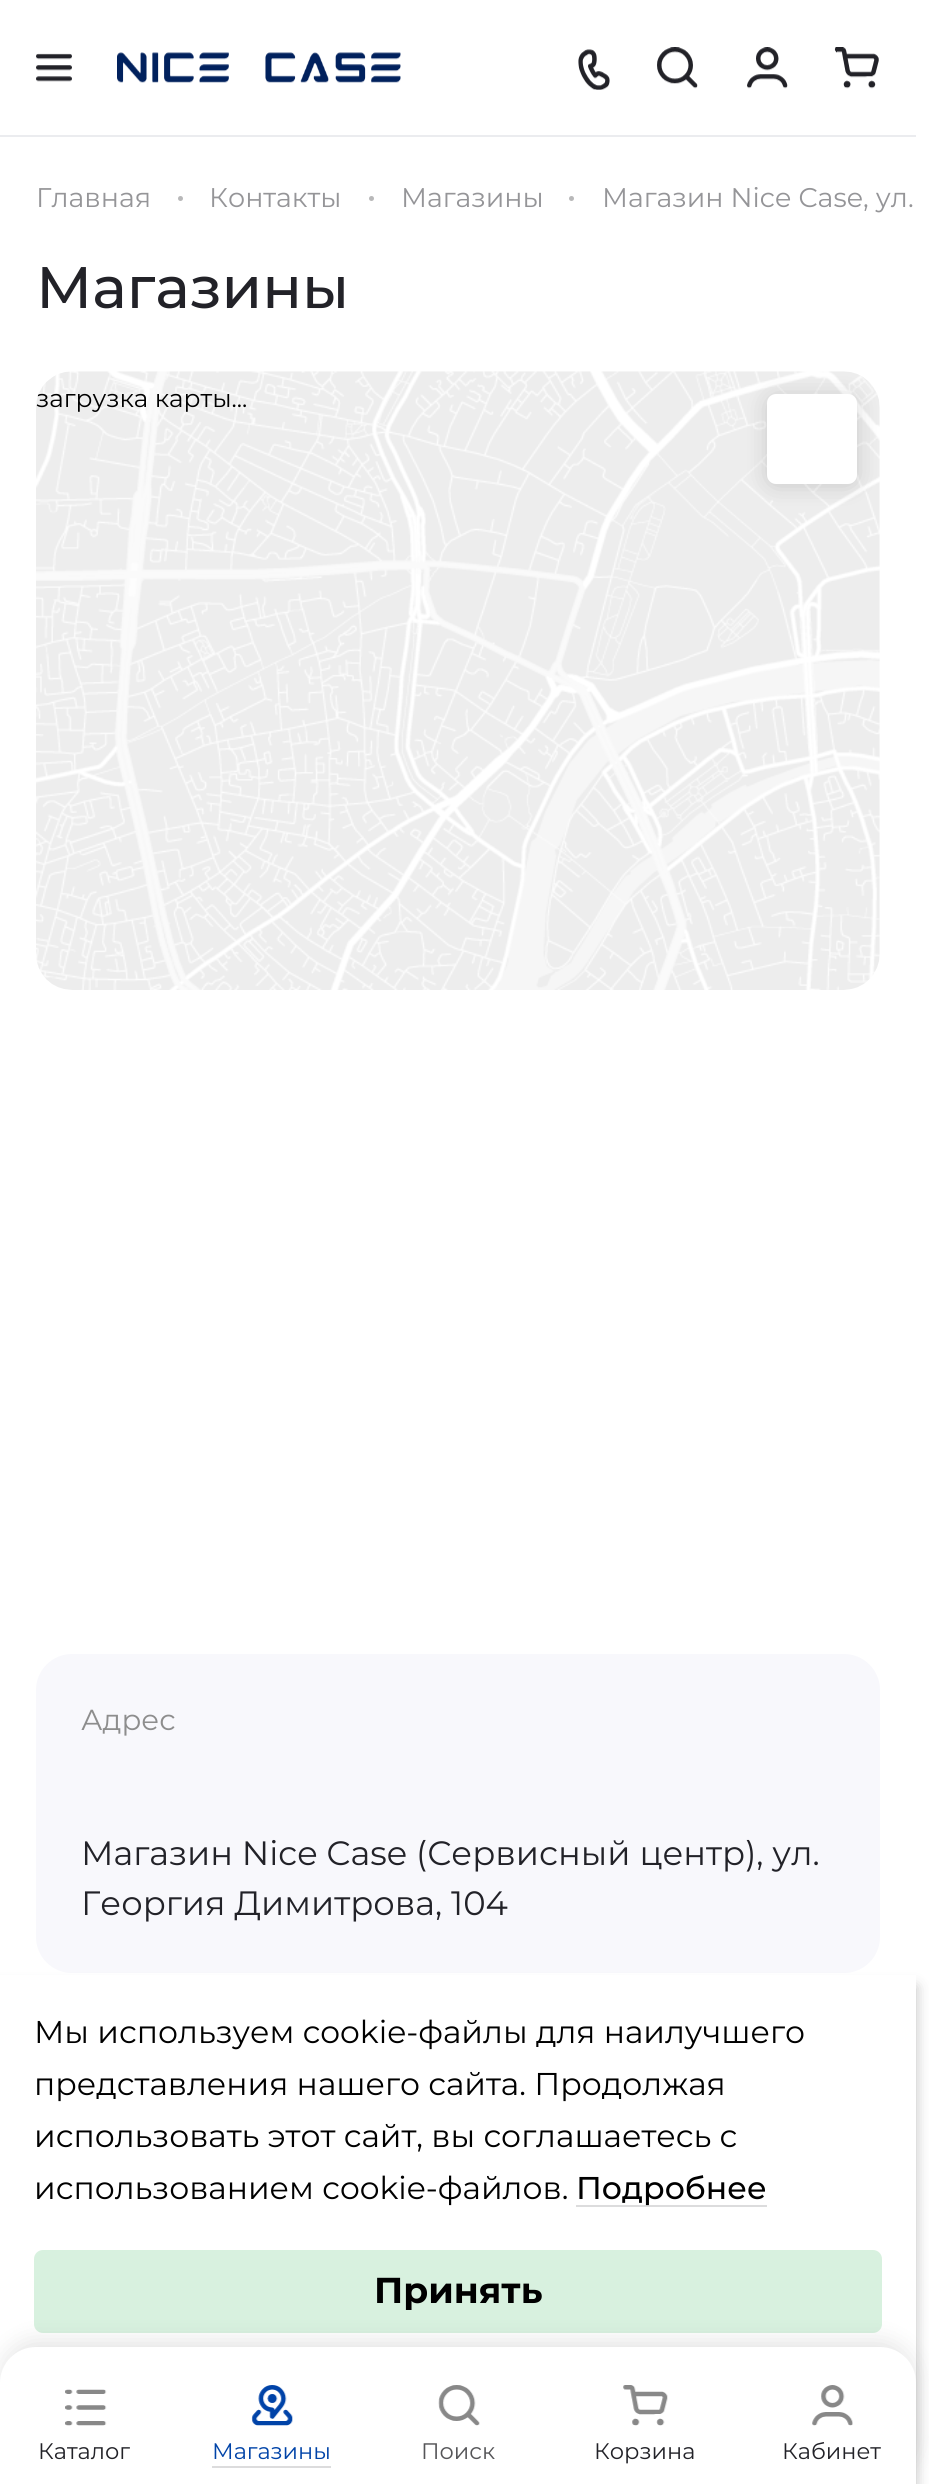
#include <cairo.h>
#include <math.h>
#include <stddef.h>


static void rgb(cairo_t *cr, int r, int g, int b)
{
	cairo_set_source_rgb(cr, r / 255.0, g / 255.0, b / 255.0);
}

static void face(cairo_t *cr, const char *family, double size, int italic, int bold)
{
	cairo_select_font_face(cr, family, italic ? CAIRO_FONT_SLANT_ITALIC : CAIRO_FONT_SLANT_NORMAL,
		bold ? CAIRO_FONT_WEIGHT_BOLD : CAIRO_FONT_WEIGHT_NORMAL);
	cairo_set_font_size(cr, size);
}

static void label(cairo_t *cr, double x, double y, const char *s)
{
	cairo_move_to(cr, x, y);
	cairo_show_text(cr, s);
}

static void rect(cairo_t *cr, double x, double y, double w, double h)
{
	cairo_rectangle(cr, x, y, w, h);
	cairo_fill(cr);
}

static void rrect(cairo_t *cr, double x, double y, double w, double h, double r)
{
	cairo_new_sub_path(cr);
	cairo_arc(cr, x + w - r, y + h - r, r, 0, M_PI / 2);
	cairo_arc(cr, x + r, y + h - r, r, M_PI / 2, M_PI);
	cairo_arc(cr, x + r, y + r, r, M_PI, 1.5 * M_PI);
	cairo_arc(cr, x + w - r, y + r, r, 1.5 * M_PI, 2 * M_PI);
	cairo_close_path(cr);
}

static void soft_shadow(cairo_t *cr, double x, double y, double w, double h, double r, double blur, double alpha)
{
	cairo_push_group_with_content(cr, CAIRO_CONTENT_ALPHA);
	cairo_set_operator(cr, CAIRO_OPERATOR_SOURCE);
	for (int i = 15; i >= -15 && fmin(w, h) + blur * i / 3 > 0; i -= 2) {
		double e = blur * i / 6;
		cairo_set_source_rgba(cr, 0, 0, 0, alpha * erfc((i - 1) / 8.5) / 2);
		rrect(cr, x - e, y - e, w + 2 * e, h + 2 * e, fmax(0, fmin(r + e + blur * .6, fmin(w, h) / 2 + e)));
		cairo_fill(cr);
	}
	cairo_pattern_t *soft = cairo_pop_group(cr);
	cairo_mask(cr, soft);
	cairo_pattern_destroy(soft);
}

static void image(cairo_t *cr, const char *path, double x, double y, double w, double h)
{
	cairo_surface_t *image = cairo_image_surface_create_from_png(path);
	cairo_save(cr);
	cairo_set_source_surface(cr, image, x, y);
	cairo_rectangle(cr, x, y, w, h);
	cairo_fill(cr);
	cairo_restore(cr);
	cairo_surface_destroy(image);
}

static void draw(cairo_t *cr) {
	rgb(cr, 255, 255, 255);
	cairo_paint(cr);
	rgb(cr, 235, 236, 239);
	rect(cr, 0, 135, 916, 2);
	image(cr, "image0.png", 36, 53, 36, 29);
	image(cr, "image1.png", 117, 52, 284, 31);
	image(cr, "image2.png", 578, 49, 32, 41);
	image(cr, "image3.png", 657, 47, 41, 42);
	image(cr, "image4.png", 747, 47, 41, 42);
	image(cr, "image5.png", 834, 47, 45, 42);
	face(cr, "Montserrat", 27, 0, 0);
	rgb(cr, 149, 149, 152);
	label(cr, 36, 207, "Главная");
	rgb(cr, 184, 184, 185);
	cairo_new_path(cr);
	cairo_arc(cr, 180.5, 198.5, 2.5, 0, 2 * M_PI);
	cairo_fill(cr);
	rgb(cr, 149, 149, 152);
	label(cr, 209, 207, "Контакты");
	rgb(cr, 184, 184, 185);
	cairo_new_path(cr);
	cairo_arc(cr, 371.5, 198.5, 2.5, 0, 2 * M_PI);
	cairo_fill(cr);
	rgb(cr, 149, 149, 152);
	label(cr, 401, 207, "Магазины");
	rgb(cr, 184, 184, 185);
	cairo_new_path(cr);
	cairo_arc(cr, 571.5, 198.5, 2.5, 0, 2 * M_PI);
	cairo_fill(cr);
	rgb(cr, 149, 149, 152);
	label(cr, 602, 207, "Магазин Nice Case, ул.");
	face(cr, "Montserrat Medium", 58.5, 0, 0);
	rgb(cr, 34, 34, 40);
	label(cr, 36, 308, "Магазины");
	image(cr, "image6.png", 36, 371, 844, 619);
	cairo_save(cr);
	rrect(cr, 36, 371, 844, 619, 36);
	cairo_clip(cr);
	face(cr, "Montserrat", 24.75, 0, 0);
	rgb(cr, 0, 0, 0);
	label(cr, 36, 407, "загрузка карты...");
	cairo_restore(cr);
	rgb(cr, 0, 0, 0);
	soft_shadow(cr, 767, 396, 90, 90, 9, 11, 0.15);
	rgb(cr, 255, 255, 255);
	rrect(cr, 767, 394, 90, 90, 9);
	cairo_fill(cr);
	rgb(cr, 248, 248, 252);
	rrect(cr, 36, 1654, 844, 319, 36);
	cairo_fill(cr);
	face(cr, "Montserrat", 29, 0, 0);
	rgb(cr, 141, 141, 141);
	label(cr, 81, 1730, "Адрес");
	face(cr, "Montserrat", 33.75, 0, 0);
	rgb(cr, 34, 34, 40);
	label(cr, 81, 1865, "Магазин Nice Case (Сервисный центр), ул.");
	label(cr, 81, 1915, "Георгия Димитрова, 104");
	rgb(cr, 0, 0, 0);
	soft_shadow(cr, 0, 1987, 916, 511, 0, 7, 0.25);
	rgb(cr, 255, 255, 255);
	rect(cr, 0, 1975, 916, 408);
	rgb(cr, 216, 241, 223);
	rrect(cr, 36.5, 2252.5, 843, 78, 6.5);
	cairo_fill_preserve(cr);
	cairo_set_line_width(cr, 5);
	cairo_stroke(cr);
	rgb(cr, 0, 0, 0);
	soft_shadow(cr, 0, 2340, 916, 137, 36, 11, 0.1);
	rgb(cr, 255, 255, 255);
	cairo_new_path(cr);
	cairo_move_to(cr, 36, 2347);
	cairo_line_to(cr, 880, 2347);
	cairo_curve_to(cr, 900, 2347, 916, 2363, 916, 2383);
	cairo_line_to(cr, 916, 2484);
	cairo_line_to(cr, 0, 2484);
	cairo_line_to(cr, 0, 2383);
	cairo_curve_to(cr, 0, 2363, 16, 2347, 36, 2347);
	cairo_close_path(cr);
	cairo_fill(cr);
	image(cr, "image7.png", 65, 2389, 42, 37);
	face(cr, "Montserrat", 22.5, 0, 0);
	rgb(cr, 34, 34, 40);
	label(cr, 38, 2459, "Каталог");
	image(cr, "image8.png", 251, 2385, 42, 41);
	rgb(cr, 0, 67, 168);
	label(cr, 212, 2459, "Магазины");
	rgb(cr, 220, 220, 221);
	rect(cr, 212, 2466, 119, 2);
	image(cr, "image9.png", 438, 2385, 42, 41);
	rgb(cr, 85, 85, 88);
	label(cr, 421, 2459, "Поиск");
	image(cr, "image10.png", 623, 2385, 45, 41);
	rgb(cr, 34, 34, 40);
	label(cr, 594, 2459, "Корзина");
	image(cr, "image11.png", 812, 2385, 41, 41);
	label(cr, 782, 2459, "Кабинет");
	face(cr, "Montserrat", 31.5, 0, 0);
	rgb(cr, 0, 0, 0);
	label(cr, 34, 2043, "Мы используем cookie-файлы для наилучшего");
	label(cr, 34, 2095, "представления нашего сайта. Продолжая");
	label(cr, 34, 2147, "использовать этот сайт, вы соглашаетесь с");
	label(cr, 34, 2199, "использованием cookie-файлов.");
	rgb(cr, 220, 220, 221);
	rect(cr, 576, 2205, 191, 2);
	face(cr, "Montserrat Medium", 31.5, 0, 0);
	rgb(cr, 0, 0, 0);
	label(cr, 576, 2199, "Подробнее");
	face(cr, "Montserrat", 36, 0, 1);
	label(cr, 374, 2303, "Принять");
}

int main(void) {
	cairo_surface_t *surface = cairo_image_surface_create(CAIRO_FORMAT_RGB24, 929, 2484);
	cairo_t *cr = cairo_create(surface);
	cairo_font_options_t *options = cairo_font_options_create();
	cairo_font_options_set_hint_metrics(options, CAIRO_HINT_METRICS_OFF);
	cairo_font_options_set_hint_style(options, CAIRO_HINT_STYLE_NONE);
	cairo_set_font_options(cr, options);
	cairo_set_miter_limit(cr, 4);
	draw(cr);
	cairo_surface_write_to_png(surface, "render.png");
	cairo_font_options_destroy(options);
	cairo_destroy(cr);
	cairo_surface_destroy(surface);
	return 0;
}
